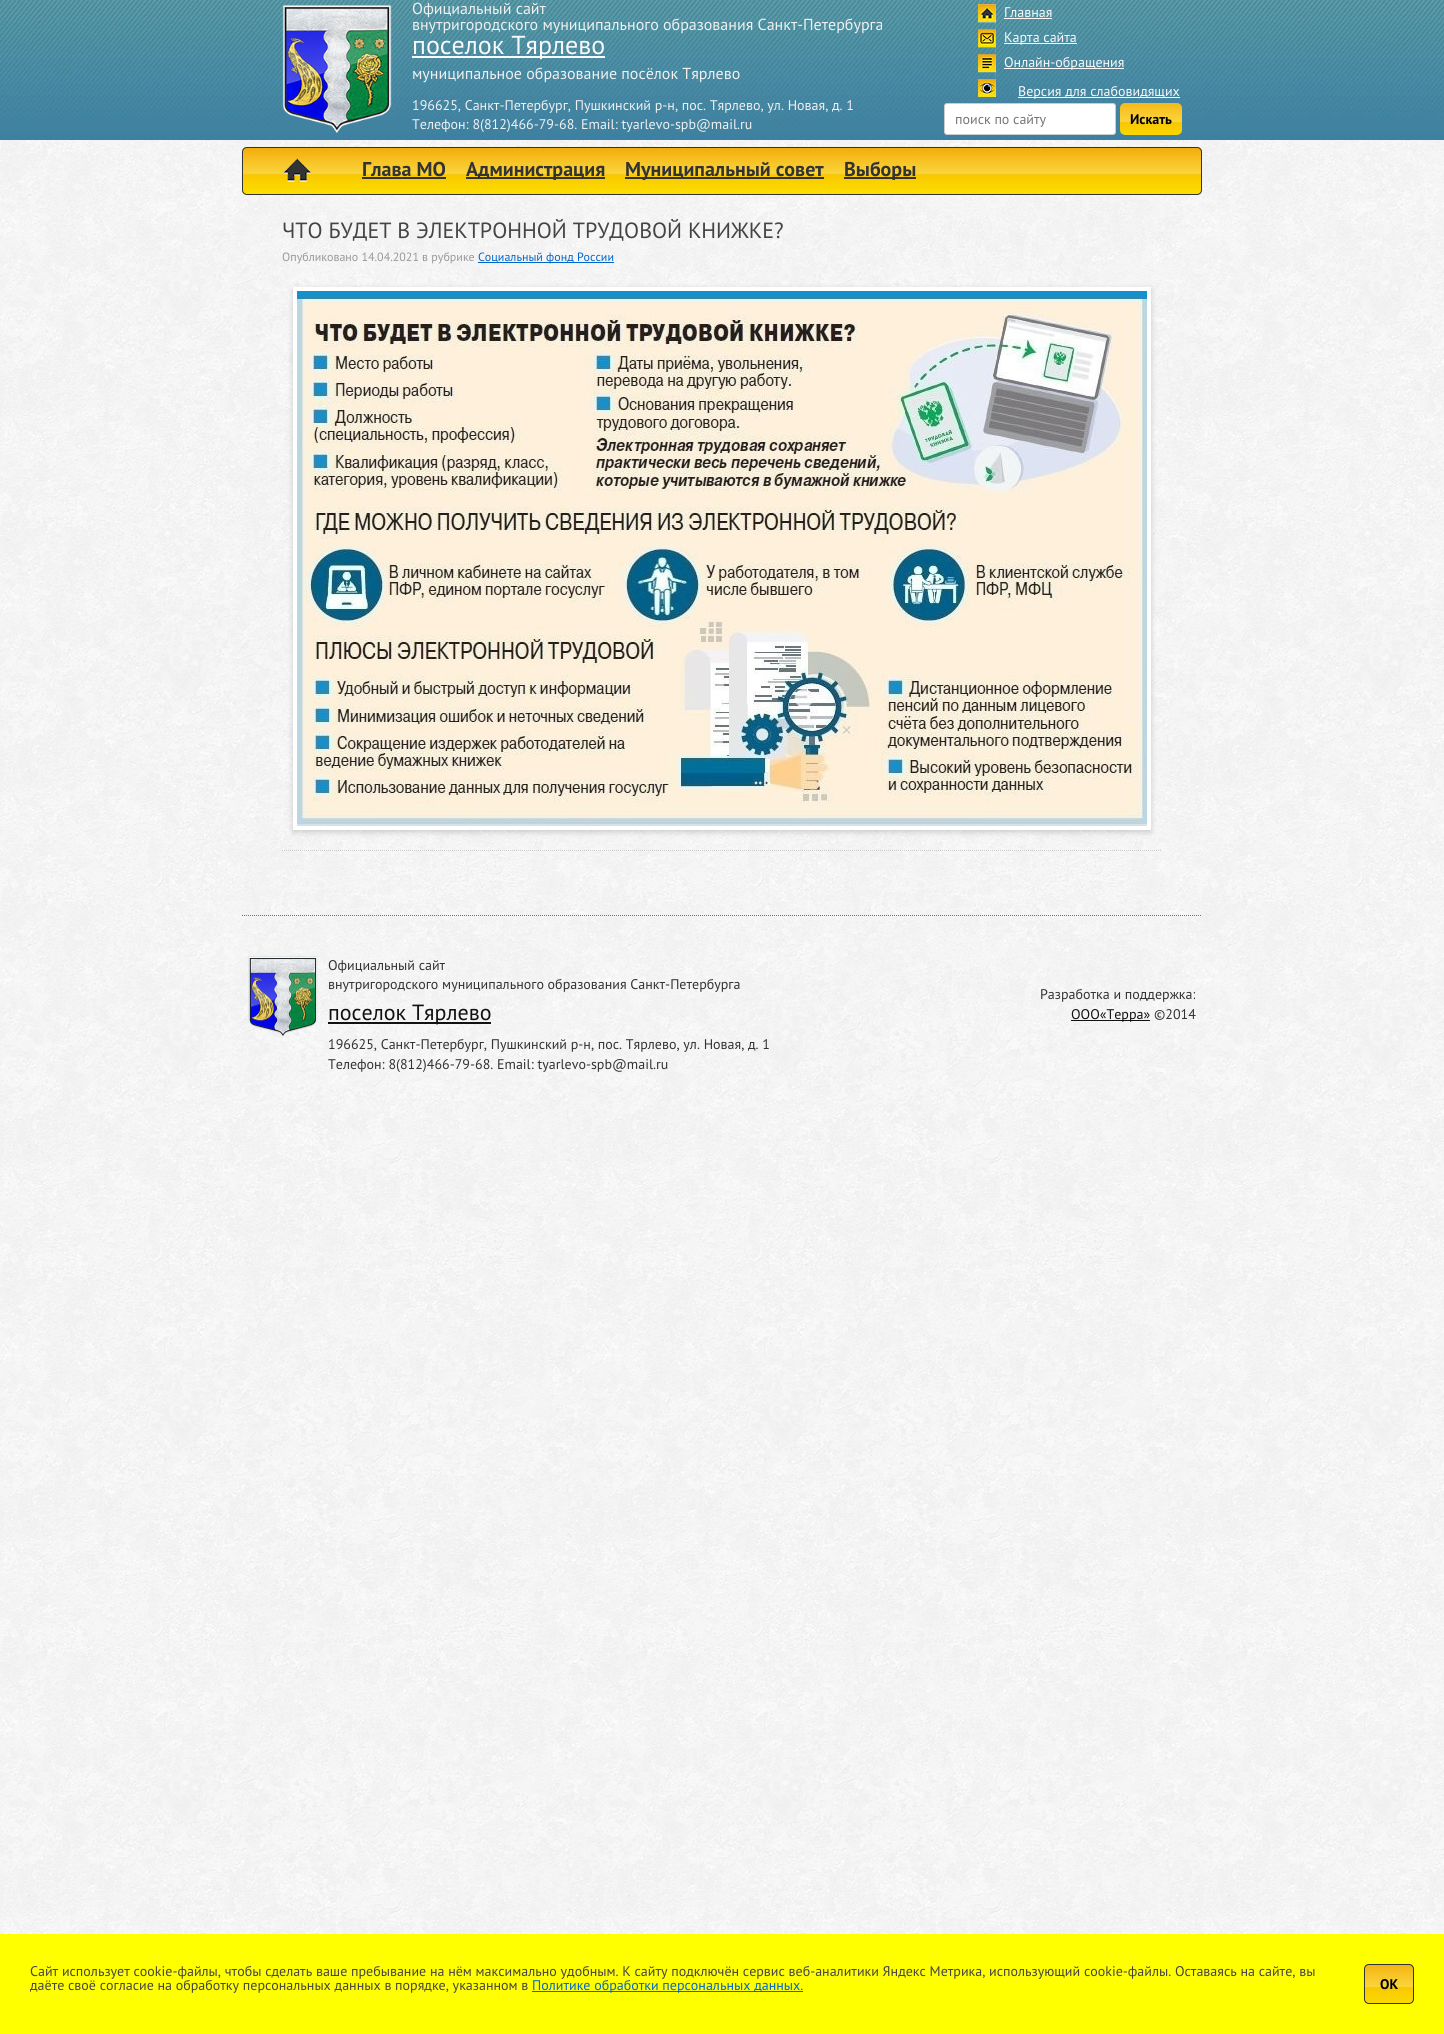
#include <cairo.h>
#include <math.h>
#include <stddef.h>


static void rgb(cairo_t *cr, int r, int g, int b)
{
	cairo_set_source_rgb(cr, r / 255.0, g / 255.0, b / 255.0);
}

static void face(cairo_t *cr, const char *family, double size, int italic, int bold)
{
	cairo_select_font_face(cr, family, italic ? CAIRO_FONT_SLANT_ITALIC : CAIRO_FONT_SLANT_NORMAL,
		bold ? CAIRO_FONT_WEIGHT_BOLD : CAIRO_FONT_WEIGHT_NORMAL);
	cairo_set_font_size(cr, size);
}

static void label(cairo_t *cr, double x, double y, const char *s)
{
	cairo_move_to(cr, x, y);
	cairo_show_text(cr, s);
}

static void rect(cairo_t *cr, double x, double y, double w, double h)
{
	cairo_rectangle(cr, x, y, w, h);
	cairo_fill(cr);
}

static void rrect(cairo_t *cr, double x, double y, double w, double h, double r)
{
	cairo_new_sub_path(cr);
	cairo_arc(cr, x + w - r, y + h - r, r, 0, M_PI / 2);
	cairo_arc(cr, x + r, y + h - r, r, M_PI / 2, M_PI);
	cairo_arc(cr, x + r, y + r, r, M_PI, 1.5 * M_PI);
	cairo_arc(cr, x + w - r, y + r, r, 1.5 * M_PI, 2 * M_PI);
	cairo_close_path(cr);
}

static void soft_shadow(cairo_t *cr, double x, double y, double w, double h, double r, double blur, double alpha)
{
	cairo_push_group_with_content(cr, CAIRO_CONTENT_ALPHA);
	cairo_set_operator(cr, CAIRO_OPERATOR_SOURCE);
	for (int i = 15; i >= -15 && fmin(w, h) + blur * i / 3 > 0; i -= 2) {
		double e = blur * i / 6;
		cairo_set_source_rgba(cr, 0, 0, 0, alpha * erfc((i - 1) / 8.5) / 2);
		rrect(cr, x - e, y - e, w + 2 * e, h + 2 * e, fmax(0, fmin(r + e + blur * .6, fmin(w, h) / 2 + e)));
		cairo_fill(cr);
	}
	cairo_pattern_t *soft = cairo_pop_group(cr);
	cairo_mask(cr, soft);
	cairo_pattern_destroy(soft);
}

static void image(cairo_t *cr, const char *path, double x, double y, double w, double h)
{
	cairo_surface_t *image = cairo_image_surface_create_from_png(path);
	cairo_save(cr);
	cairo_set_source_surface(cr, image, x, y);
	cairo_rectangle(cr, x, y, w, h);
	cairo_fill(cr);
	cairo_restore(cr);
	cairo_surface_destroy(image);
}

static void draw(cairo_t *cr) {
	rgb(cr, 255, 255, 255);
	cairo_paint(cr);
	image(cr, "image0.png", 0, 0, 1444, 1934);
	image(cr, "image1.png", 978, 4, 18, 93);
	image(cr, "image2.png", 282, 4, 110, 130);
	face(cr, "PT Sans", 16, 0, 0);
	rgb(cr, 240, 240, 240);
	label(cr, 412, 14, "Официальный сайт");
	label(cr, 412, 30, "внутригородского муниципального образования Санкт-Петербурга");
	rgb(cr, 249, 249, 249);
	rect(cr, 412, 56, 193, 2);
	face(cr, "PT Sans", 26, 0, 0);
	label(cr, 412, 54, "поселок Тярлево");
	face(cr, "PT Sans", 16, 0, 0);
	rgb(cr, 240, 240, 240);
	label(cr, 412, 79, "муниципальное образование посёлок Тярлево");
	face(cr, "PT Sans", 14, 0, 0);
	label(cr, 412, 110, "196625, Санкт-Петербург, Пушкинский р-н, пос. Тярлево, ул. Новая, д. 1");
	label(cr, 412, 129, "Телефон: 8(812)466-79-68. Email: tyarlevo-spb@mail.ru");
	rgb(cr, 249, 249, 249);
	label(cr, 1004, 17, "Главная");
	rect(cr, 1004, 18, 48, 1);
	rect(cr, 1004, 43, 73, 1);
	label(cr, 1004, 42, "Карта сайта");
	rect(cr, 1004, 68, 120, 1);
	label(cr, 1004, 67, "Онлайн-обращения");
	rgb(cr, 255, 255, 255);
	rrect(cr, 944.5, 103.5, 171, 31, 2.5);
	cairo_fill_preserve(cr);
	rgb(cr, 204, 204, 204);
	cairo_set_line_width(cr, 1);
	cairo_stroke(cr);
	rgb(cr, 117, 117, 117);
	label(cr, 955, 124, "поиск по сайту");
	image(cr, "image3.png", 1120, 103, 62, 32);
	face(cr, "PT Sans", 14, 0, 1);
	rgb(cr, 0, 0, 0);
	label(cr, 1130, 124, "Искать");
	image(cr, "image4.png", 242, 147, 960, 48);
	rrect(cr, 242.5, 147.5, 959, 47, 4.5);
	rgb(cr, 51, 51, 51);
	cairo_stroke(cr);
	image(cr, "image5.png", 283, 158, 28, 24);
	face(cr, "PT Sans", 20, 0, 1);
	label(cr, 362, 176, "Глава МО");
	rect(cr, 362, 177, 84, 2);
	rect(cr, 466, 177, 139, 2);
	label(cr, 466, 176, "Администрация");
	rect(cr, 625, 177, 199, 2);
	label(cr, 625, 176, "Муниципальный совет");
	rect(cr, 844, 177, 72, 2);
	label(cr, 844, 176, "Выборы");
	cairo_new_path(cr);
	cairo_move_to(cr, 282, 850.5);
	cairo_line_to(cr, 1162, 850.5);
	rgb(cr, 204, 204, 204);
	cairo_set_dash(cr, (double[]){1, 1}, 2, 0);
	cairo_stroke(cr);
	face(cr, "PT Sans", 22, 0, 0);
	rgb(cr, 68, 68, 68);
	label(cr, 282, 238, "ЧТО БУДЕТ В ЭЛЕКТРОННОЙ ТРУДОВОЙ КНИЖКЕ?");
	face(cr, "PT Sans", 12, 0, 0);
	rgb(cr, 153, 153, 153);
	label(cr, 282, 261, "Опубликовано 14.04.2021 в рубрике");
	rgb(cr, 0, 102, 204);
	rect(cr, 478, 262, 136, 1);
	label(cr, 478, 261, "Социальный фонд России");
	rgb(cr, 100, 100, 100);
	soft_shadow(cr, 293, 289, 858, 543, 0, 3, 0.3);
	cairo_rectangle(cr, 295, 289, 854, 539);
	rgb(cr, 255, 255, 255);
	cairo_set_line_width(cr, 4);
	cairo_set_dash(cr, NULL, 0, 0);
	cairo_stroke(cr);
	image(cr, "image6.png", 297, 291, 850, 535);
	cairo_new_path(cr);
	cairo_move_to(cr, 242, 915.5);
	cairo_line_to(cr, 1202, 915.5);
	rgb(cr, 62, 128, 162);
	cairo_set_line_width(cr, 1);
	cairo_set_dash(cr, (double[]){1, 1}, 2, 0);
	cairo_stroke(cr);
	image(cr, "image7.png", 248, 956, 70, 82);
	face(cr, "PT Sans", 14, 0, 0);
	rgb(cr, 51, 51, 51);
	label(cr, 328, 970, "Официальный сайт");
	label(cr, 328, 989, "внутригородского муниципального образования Санкт-Петербурга");
	rgb(cr, 17, 17, 17);
	rect(cr, 328, 1022, 163, 2);
	face(cr, "PT Sans", 22, 0, 0);
	label(cr, 328, 1020, "поселок Тярлево");
	face(cr, "PT Sans", 14, 0, 0);
	rgb(cr, 51, 51, 51);
	label(cr, 328, 1049, "196625, Санкт-Петербург, Пушкинский р-н, пос. Тярлево, ул. Новая, д. 1");
	label(cr, 328, 1069, "Телефон: 8(812)466-79-68. Email: tyarlevo-spb@mail.ru");
	label(cr, 1040, 999, "Разработка и поддержка:");
	rgb(cr, 17, 17, 17);
	rect(cr, 1071, 1020, 79, 1);
	label(cr, 1071, 1019, "ООО«Терра»");
	rgb(cr, 51, 51, 51);
	label(cr, 1154, 1019, "©2014");
	rgb(cr, 249, 249, 249);
	rect(cr, 1018, 97, 162, 1);
	label(cr, 1018, 96, "Версия для слабовидящих");
	rgb(cr, 255, 255, 0);
	rect(cr, 0, 1934, 1444, 100);
	rgb(cr, 68, 68, 68);
	label(cr, 30, 1976, "Сайт использует cookie-файлы, чтобы сделать ваше пребывание на нём максимально удобным. К cайту подключён сервис веб-аналитики Яндекс Метрика, использующий cookie-файлы. Оставаясь на сайте, вы");
	label(cr, 30, 1990, "даёте своё согласие на обработку персональных данных в порядке, указанном в");
	rgb(cr, 0, 102, 204);
	rect(cr, 532, 1991, 271, 1);
	label(cr, 532, 1990, "Политике обработки персональных данных.");
	image(cr, "image8.png", 1364, 1964, 50, 40);
	rrect(cr, 1364.5, 1964.5, 49, 39, 4.5);
	rgb(cr, 51, 51, 51);
	cairo_set_dash(cr, NULL, 0, 0);
	cairo_stroke(cr);
	face(cr, "PT Sans", 14, 0, 1);
	rgb(cr, 0, 0, 0);
	label(cr, 1380, 1989, "OK");
}

int main(void) {
	cairo_surface_t *surface = cairo_image_surface_create(CAIRO_FORMAT_RGB24, 1444, 2034);
	cairo_t *cr = cairo_create(surface);
	cairo_font_options_t *options = cairo_font_options_create();
	cairo_font_options_set_hint_metrics(options, CAIRO_HINT_METRICS_OFF);
	cairo_font_options_set_hint_style(options, CAIRO_HINT_STYLE_NONE);
	cairo_set_font_options(cr, options);
	cairo_set_miter_limit(cr, 4);
	draw(cr);
	cairo_surface_write_to_png(surface, "render.png");
	cairo_font_options_destroy(options);
	cairo_destroy(cr);
	cairo_surface_destroy(surface);
	return 0;
}
